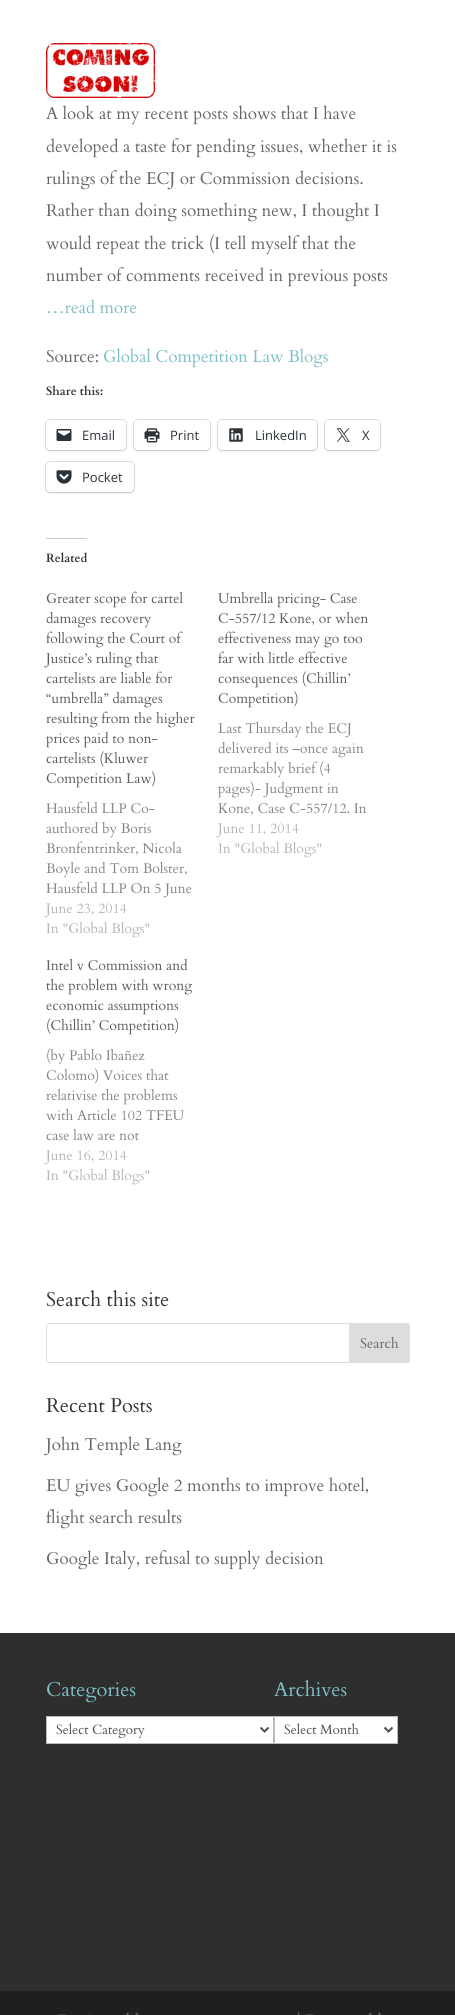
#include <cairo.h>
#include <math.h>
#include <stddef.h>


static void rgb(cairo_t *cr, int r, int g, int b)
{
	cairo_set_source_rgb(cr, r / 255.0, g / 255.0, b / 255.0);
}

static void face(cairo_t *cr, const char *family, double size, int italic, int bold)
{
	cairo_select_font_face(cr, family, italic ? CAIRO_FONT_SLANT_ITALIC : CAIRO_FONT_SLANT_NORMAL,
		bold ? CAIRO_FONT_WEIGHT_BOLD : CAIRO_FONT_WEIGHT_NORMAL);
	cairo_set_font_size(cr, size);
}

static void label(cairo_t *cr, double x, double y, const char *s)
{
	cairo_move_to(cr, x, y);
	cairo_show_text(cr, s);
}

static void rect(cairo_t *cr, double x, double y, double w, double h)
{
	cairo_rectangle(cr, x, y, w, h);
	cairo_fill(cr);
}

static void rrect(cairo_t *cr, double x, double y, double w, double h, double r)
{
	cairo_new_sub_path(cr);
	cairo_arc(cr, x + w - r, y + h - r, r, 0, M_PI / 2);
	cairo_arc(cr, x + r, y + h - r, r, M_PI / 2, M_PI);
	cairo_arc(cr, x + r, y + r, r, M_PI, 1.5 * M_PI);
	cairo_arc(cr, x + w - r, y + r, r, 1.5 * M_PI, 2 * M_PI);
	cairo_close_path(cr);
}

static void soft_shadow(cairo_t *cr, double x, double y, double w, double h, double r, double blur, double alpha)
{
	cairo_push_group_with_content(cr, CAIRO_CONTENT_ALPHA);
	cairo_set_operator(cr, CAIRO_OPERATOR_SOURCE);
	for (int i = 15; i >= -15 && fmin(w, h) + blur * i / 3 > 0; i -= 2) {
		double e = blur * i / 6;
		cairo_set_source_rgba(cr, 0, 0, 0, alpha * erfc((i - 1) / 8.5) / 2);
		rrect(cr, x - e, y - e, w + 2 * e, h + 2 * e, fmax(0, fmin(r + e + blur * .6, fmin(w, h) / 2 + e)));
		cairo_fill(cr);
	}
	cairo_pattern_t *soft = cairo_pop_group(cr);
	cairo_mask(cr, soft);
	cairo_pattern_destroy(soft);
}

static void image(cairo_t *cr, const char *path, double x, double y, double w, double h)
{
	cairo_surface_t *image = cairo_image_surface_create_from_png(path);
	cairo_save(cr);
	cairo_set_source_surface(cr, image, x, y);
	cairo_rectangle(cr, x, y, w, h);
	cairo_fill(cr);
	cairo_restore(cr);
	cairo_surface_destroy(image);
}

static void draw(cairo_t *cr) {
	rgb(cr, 255, 255, 255);
	cairo_paint(cr);
	image(cr, "image0.png", 46, 43, 109, 55);
	image(cr, "image1.png", 46, 105, 310, 20);
	image(cr, "image2.png", 46, 138, 351, 20);
	image(cr, "image3.png", 46, 170, 317, 20);
	image(cr, "image4.png", 46, 202, 333, 20);
	image(cr, "image5.png", 46, 234, 310, 21);
	image(cr, "image6.png", 46, 267, 342, 20);
	image(cr, "image7.png", 48, 299, 89, 15);
	image(cr, "image8.png", 46, 350, 52, 13);
	image(cr, "image9.png", 104, 348, 224, 20);
	face(cr, "Cardo", 12, 0, 1);
	rgb(cr, 51, 51, 51);
	label(cr, 46, 395, "Share this:");
	rrect(cr, 45.5, 419.5, 81, 31, 4.5);
	rgb(cr, 224, 224, 224);
	cairo_set_line_width(cr, 1);
	cairo_stroke(cr);
	rgb(cr, 0, 0, 0);
	soft_shadow(cr, 46, 421, 80, 30, 4, 1, 0.12);
	rgb(cr, 255, 255, 255);
	rrect(cr, 46, 420, 80, 30, 4);
	cairo_fill(cr);
	image(cr, "image10.png", 56, 429, 16, 12);
	face(cr, "Open Sans", 13, 0, 0);
	rgb(cr, 44, 51, 56);
	label(cr, 82, 440, "Email");
	rrect(cr, 133.5, 419.5, 77, 31, 4.5);
	rgb(cr, 224, 224, 224);
	cairo_stroke(cr);
	rgb(cr, 0, 0, 0);
	soft_shadow(cr, 134, 421, 76, 30, 4, 1, 0.12);
	rgb(cr, 255, 255, 255);
	rrect(cr, 134, 420, 76, 30, 4);
	cairo_fill(cr);
	image(cr, "image11.png", 144, 428, 16, 15);
	rgb(cr, 44, 51, 56);
	label(cr, 170, 440, "Print");
	rrect(cr, 217.5, 419.5, 100, 31, 4.5);
	rgb(cr, 224, 224, 224);
	cairo_stroke(cr);
	rgb(cr, 0, 0, 0);
	soft_shadow(cr, 218, 421, 99, 30, 4, 1, 0.12);
	rgb(cr, 255, 255, 255);
	rrect(cr, 218, 420, 99, 30, 4);
	cairo_fill(cr);
	image(cr, "image12.png", 229, 428, 14, 14);
	rgb(cr, 44, 51, 56);
	label(cr, 255, 440, "LinkedIn");
	rrect(cr, 324.5, 419.5, 56, 31, 4.5);
	rgb(cr, 224, 224, 224);
	cairo_stroke(cr);
	rgb(cr, 0, 0, 0);
	soft_shadow(cr, 325, 421, 55, 30, 4, 1, 0.12);
	rgb(cr, 255, 255, 255);
	rrect(cr, 325, 420, 55, 30, 4);
	cairo_fill(cr);
	image(cr, "image13.png", 336, 428, 14, 14);
	rgb(cr, 44, 51, 56);
	label(cr, 362, 440, "X");
	rrect(cr, 45.5, 461.5, 89, 31, 4.5);
	rgb(cr, 224, 224, 224);
	cairo_stroke(cr);
	rgb(cr, 0, 0, 0);
	soft_shadow(cr, 46, 463, 88, 30, 4, 1, 0.12);
	rgb(cr, 255, 255, 255);
	rrect(cr, 46, 462, 88, 30, 4);
	cairo_fill(cr);
	image(cr, "image14.png", 56, 470, 16, 14);
	rgb(cr, 44, 51, 56);
	label(cr, 82, 482, "Pocket");
	rgb(cr, 204, 204, 204);
	rect(cr, 46, 538, 41, 1);
	face(cr, "Cardo", 12, 0, 1);
	rgb(cr, 51, 51, 51);
	label(cr, 46, 562, "Related");
	image(cr, "image15.png", 46, 591, 137, 17);
	image(cr, "image16.png", 46, 611, 106, 17);
	image(cr, "image17.png", 46, 631, 137, 17);
	image(cr, "image18.png", 44, 651, 114, 17);
	image(cr, "image19.png", 46, 671, 127, 13);
	image(cr, "image20.png", 46, 691, 117, 17);
	image(cr, "image21.png", 46, 711, 149, 17);
	image(cr, "image22.png", 46, 731, 112, 17);
	image(cr, "image23.png", 46, 751, 103, 16);
	image(cr, "image24.png", 46, 771, 109, 17);
	image(cr, "image25.png", 46, 801, 109, 13);
	image(cr, "image26.png", 46, 821, 105, 17);
	image(cr, "image27.png", 46, 841, 136, 14);
	image(cr, "image28.png", 46, 861, 141, 17);
	image(cr, "image29.png", 46, 881, 146, 17);
	image(cr, "image30.png", 44, 903, 83, 15);
	image(cr, "image31.png", 46, 921, 104, 17);
	image(cr, "image32.png", 218, 591, 139, 17);
	image(cr, "image33.png", 218, 611, 151, 14);
	image(cr, "image34.png", 218, 631, 145, 17);
	image(cr, "image35.png", 218, 651, 129, 13);
	image(cr, "image36.png", 218, 671, 133, 17);
	image(cr, "image37.png", 218, 691, 80, 17);
	image(cr, "image38.png", 218, 721, 134, 17);
	image(cr, "image39.png", 218, 741, 146, 17);
	image(cr, "image40.png", 218, 761, 113, 17);
	image(cr, "image41.png", 218, 781, 121, 17);
	image(cr, "image42.png", 218, 803, 149, 12);
	image(cr, "image43.png", 216, 823, 83, 15);
	image(cr, "image31.png", 218, 841, 104, 17);
	image(cr, "image44.png", 46, 958, 142, 13);
	image(cr, "image45.png", 46, 978, 146, 17);
	image(cr, "image46.png", 46, 1000, 133, 15);
	image(cr, "image47.png", 47, 1018, 132, 17);
	image(cr, "image48.png", 47, 1048, 98, 17);
	image(cr, "image49.png", 46, 1068, 123, 16);
	image(cr, "image50.png", 46, 1088, 131, 17);
	image(cr, "image51.png", 46, 1108, 138, 13);
	image(cr, "image52.png", 46, 1128, 93, 13);
	image(cr, "image53.png", 44, 1150, 83, 15);
	image(cr, "image31.png", 46, 1168, 104, 17);
	image(cr, "image54.png", 46, 1290, 123, 17);
	rrect(cr, 46.5, 1323.5, 363, 39, 2.5);
	rgb(cr, 221, 221, 221);
	cairo_stroke(cr);
	cairo_new_path(cr);
	cairo_move_to(cr, 349.5, 1323.5);
	cairo_line_to(cr, 407, 1323.5);
	cairo_curve_to(cr, 408.5, 1323.5, 409.5, 1324.5, 409.5, 1326);
	cairo_line_to(cr, 409.5, 1360);
	cairo_curve_to(cr, 409.5, 1361.5, 408.5, 1362.5, 407, 1362.5);
	cairo_line_to(cr, 349.5, 1362.5);
	cairo_close_path(cr);
	cairo_fill_preserve(cr);
	cairo_stroke(cr);
	image(cr, "image55.png", 360, 1336, 39, 13);
	image(cr, "image56.png", 46, 1398, 106, 15);
	image(cr, "image57.png", 44, 1436, 138, 20);
	image(cr, "image58.png", 46, 1477, 323, 20);
	image(cr, "image59.png", 46, 1509, 136, 20);
	image(cr, "image60.png", 47, 1550, 277, 20);
	rgb(cr, 46, 46, 46);
	rect(cr, 0, 1633, 455, 358);
	image(cr, "image61.png", 47, 1681, 89, 22);
	rgb(cr, 255, 255, 255);
	cairo_rectangle(cr, 46.5, 1716.5, 227, 27);
	cairo_fill_preserve(cr);
	rgb(cr, 187, 187, 187);
	cairo_stroke(cr);
	cairo_new_path(cr);
	cairo_move_to(cr, 260.5, 1727.5);
	cairo_line_to(cr, 264.5, 1731.5);
	cairo_line_to(cr, 268.5, 1727.5);
	rgb(cr, 78, 78, 78);
	cairo_set_line_width(cr, 2);
	cairo_stroke(cr);
	image(cr, "image62.png", 56, 1723, 89, 16);
	image(cr, "image63.png", 274, 1680, 73, 17);
	rgb(cr, 255, 255, 255);
	cairo_rectangle(cr, 274.5, 1716.5, 123, 27);
	cairo_fill_preserve(cr);
	rgb(cr, 187, 187, 187);
	cairo_set_line_width(cr, 1);
	cairo_stroke(cr);
	cairo_new_path(cr);
	cairo_move_to(cr, 384.5, 1727.5);
	cairo_line_to(cr, 388.5, 1731.5);
	cairo_line_to(cr, 392.5, 1727.5);
	rgb(cr, 78, 78, 78);
	cairo_set_line_width(cr, 2);
	cairo_stroke(cr);
	image(cr, "image64.png", 284, 1723, 75, 12);
	rgb(cr, 31, 31, 31);
	rect(cr, 0, 1991, 455, 24);
	image(cr, "image65.png", 58, 2012, 80, 3);
	image(cr, "image66.png", 298, 2012, 83, 3);
}

int main(void) {
	cairo_surface_t *surface = cairo_image_surface_create(CAIRO_FORMAT_RGB24, 455, 2015);
	cairo_t *cr = cairo_create(surface);
	cairo_font_options_t *options = cairo_font_options_create();
	cairo_font_options_set_hint_metrics(options, CAIRO_HINT_METRICS_OFF);
	cairo_font_options_set_hint_style(options, CAIRO_HINT_STYLE_NONE);
	cairo_set_font_options(cr, options);
	cairo_set_miter_limit(cr, 4);
	draw(cr);
	cairo_surface_write_to_png(surface, "render.png");
	cairo_font_options_destroy(options);
	cairo_destroy(cr);
	cairo_surface_destroy(surface);
	return 0;
}
